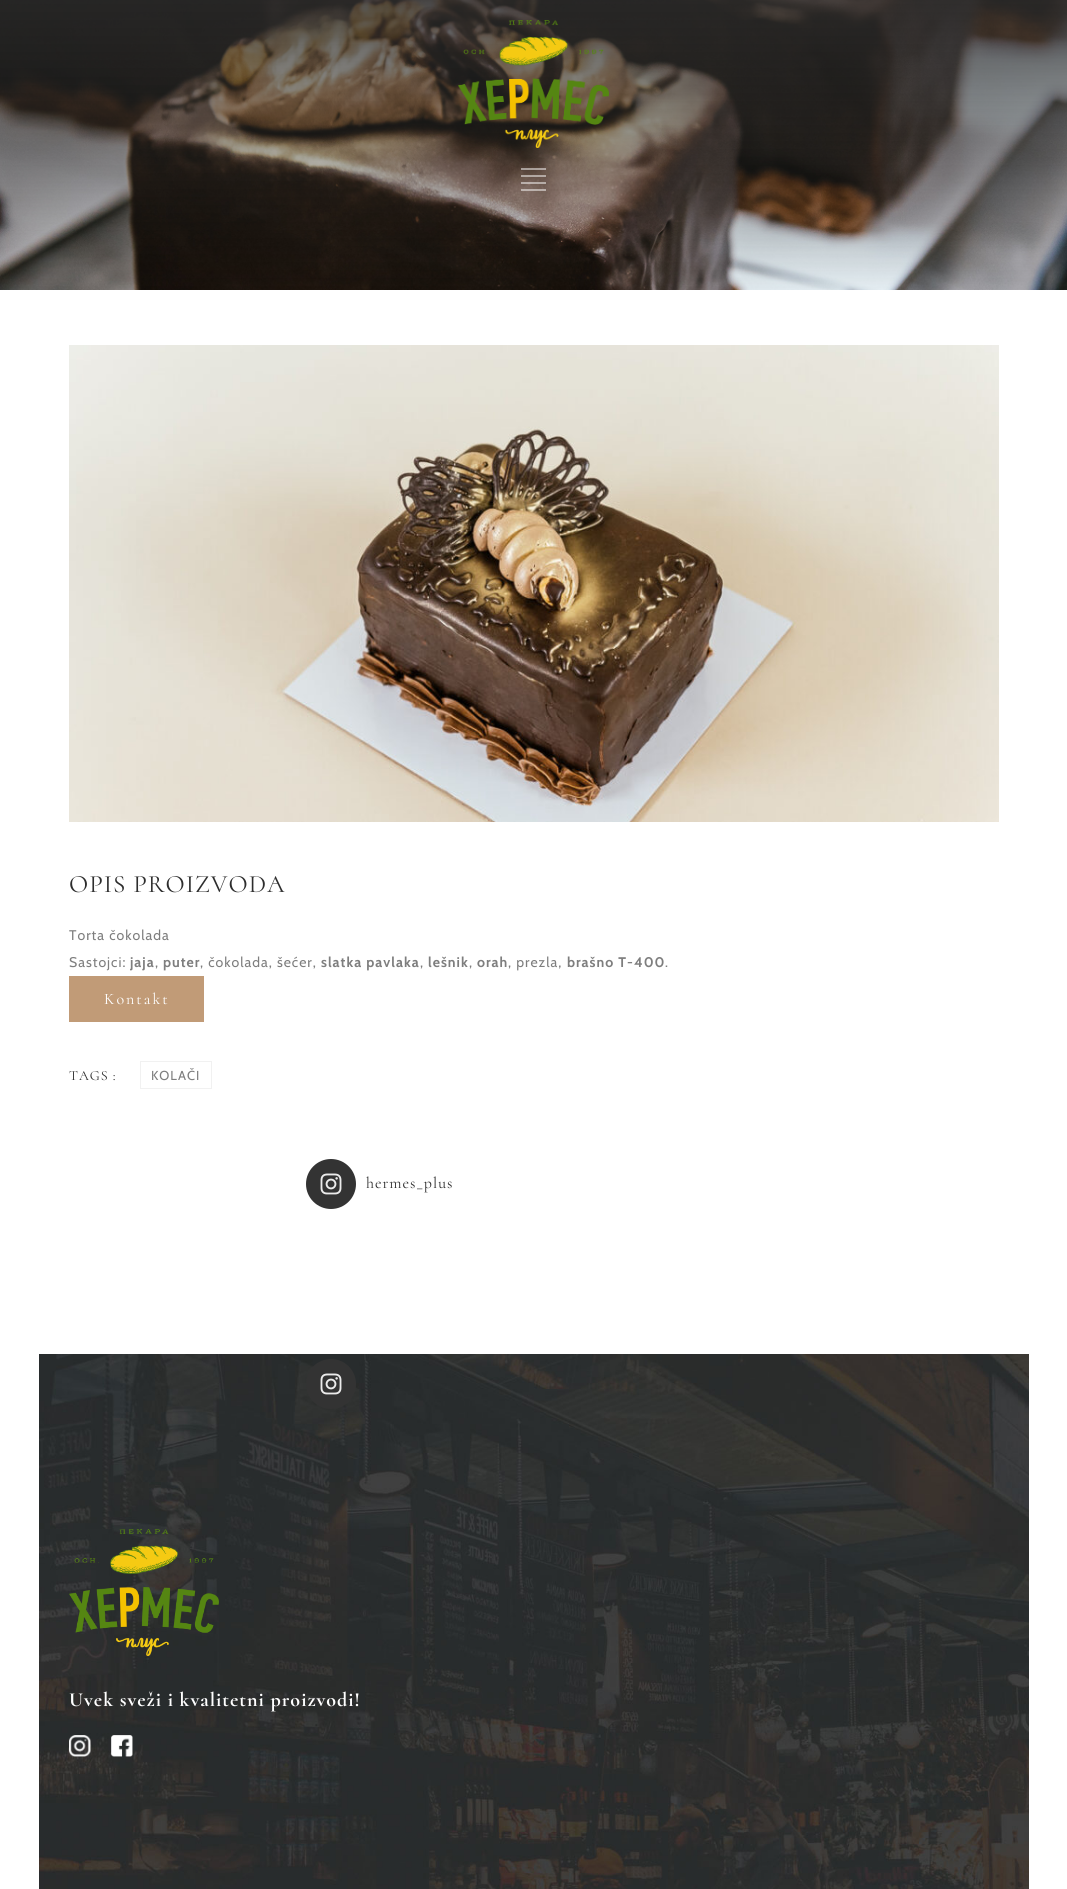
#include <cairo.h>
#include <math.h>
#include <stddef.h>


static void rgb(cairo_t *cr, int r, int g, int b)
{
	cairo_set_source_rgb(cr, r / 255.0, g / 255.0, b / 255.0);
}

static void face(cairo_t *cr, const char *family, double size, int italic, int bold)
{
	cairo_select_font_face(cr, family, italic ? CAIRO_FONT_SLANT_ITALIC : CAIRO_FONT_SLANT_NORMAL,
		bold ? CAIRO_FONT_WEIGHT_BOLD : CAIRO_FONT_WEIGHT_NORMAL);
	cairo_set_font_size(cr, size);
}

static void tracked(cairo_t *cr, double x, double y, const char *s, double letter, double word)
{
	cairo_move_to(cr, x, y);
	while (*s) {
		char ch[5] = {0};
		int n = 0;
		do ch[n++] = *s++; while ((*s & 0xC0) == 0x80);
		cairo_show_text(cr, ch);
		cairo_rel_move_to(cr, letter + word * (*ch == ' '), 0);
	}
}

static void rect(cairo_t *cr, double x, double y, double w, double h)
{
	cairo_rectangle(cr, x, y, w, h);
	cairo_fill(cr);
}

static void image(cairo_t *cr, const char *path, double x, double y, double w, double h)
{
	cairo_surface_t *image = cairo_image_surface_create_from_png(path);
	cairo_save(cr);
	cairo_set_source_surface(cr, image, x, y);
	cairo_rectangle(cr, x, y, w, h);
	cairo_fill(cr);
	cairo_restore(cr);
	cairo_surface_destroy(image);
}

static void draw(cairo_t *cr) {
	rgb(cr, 255, 255, 255);
	cairo_paint(cr);
	image(cr, "image0.png", 0, 0, 1067, 290);
	image(cr, "image1.png", 458, 20, 151, 128);
	image(cr, "image2.png", 521, 168, 25, 23);
	image(cr, "image3.png", 69, 345, 930, 477);
	face(cr, "Cormorant", 25, 0, 0);
	rgb(cr, 45, 45, 45);
	tracked(cr, 69, 892, "OPIS PROIZVODA", 1, 0);
	face(cr, "Cabin", 14, 0, 0);
	rgb(cr, 126, 126, 126);
	tracked(cr, 69, 940, "Torta čokolada", 1, 0);
	tracked(cr, 69, 967, "Sastojci:", 1, 0);
	face(cr, "Cabin", 14, 0, 1);
	tracked(cr, 130, 967, "jaja", 1, 0);
	face(cr, "Cabin", 14, 0, 0);
	tracked(cr, 155, 967, ",", 1, 0);
	face(cr, "Cabin", 14, 0, 1);
	tracked(cr, 163, 967, "puter", 1, 0);
	face(cr, "Cabin", 14, 0, 0);
	tracked(cr, 200, 967, ", čokolada, šećer,", 1, 0);
	face(cr, "Cabin", 14, 0, 1);
	tracked(cr, 321, 967, "slatka pavlaka", 1, 0);
	face(cr, "Cabin", 14, 0, 0);
	tracked(cr, 420, 967, ",", 1, 0);
	face(cr, "Cabin", 14, 0, 1);
	tracked(cr, 428, 967, "lešnik", 1, 0);
	face(cr, "Cabin", 14, 0, 0);
	tracked(cr, 469, 967, ",", 1, 0);
	face(cr, "Cabin", 14, 0, 1);
	tracked(cr, 477, 967, "orah", 1, 0);
	face(cr, "Cabin", 14, 0, 0);
	tracked(cr, 508, 967, ", prezla,", 1, 0);
	face(cr, "Cabin", 14, 0, 1);
	tracked(cr, 567, 967, "brašno T-400", 1, 0);
	face(cr, "Cabin", 14, 0, 0);
	tracked(cr, 665, 967, ".", 1, 0);
	rgb(cr, 193, 155, 119);
	rect(cr, 69, 976, 135, 46);
	face(cr, "Cormorant", 16, 0, 0);
	rgb(cr, 255, 255, 255);
	tracked(cr, 104, 1004, "Kontakt", 2, 0);
	face(cr, "Cormorant", 14, 0, 0);
	rgb(cr, 45, 45, 45);
	tracked(cr, 69, 1080, "TAGS :", 1, 0);
	cairo_rectangle(cr, 140.5, 1061.5, 71, 27);
	rgb(cr, 241, 241, 241);
	cairo_set_line_width(cr, 1);
	cairo_stroke(cr);
	face(cr, "Cabin", 13, 0, 0);
	rgb(cr, 126, 126, 126);
	tracked(cr, 151, 1080, "KOLAČI", 1, 0);
	rgb(cr, 51, 51, 51);
	cairo_new_path(cr);
	cairo_arc(cr, 331, 1184, 25, 0, 2 * M_PI);
	cairo_fill(cr);
	image(cr, "image4.png", 320, 1173, 22, 22);
	face(cr, "Cormorant", 16, 0, 0);
	rgb(cr, 45, 45, 45);
	tracked(cr, 366, 1188, "hermes_plus", 1, 0);
	image(cr, "image5.png", 39, 1354, 990, 535);
	rgb(cr, 51, 51, 51);
	cairo_arc(cr, 331, 1384, 25, 0, 2 * M_PI);
	cairo_fill(cr);
	image(cr, "image4.png", 320, 1373, 22, 22);
	image(cr, "image6.png", 69, 1529, 150, 127);
	face(cr, "Cormorant", 20, 0, 1);
	rgb(cr, 255, 255, 255);
	tracked(cr, 69, 1706, "Uvek sveži i kvalitetni proizvodi!", 1, 0);
	image(cr, "image7.png", 69, 1735, 22, 22);
	image(cr, "image8.png", 111, 1735, 22, 22);
}

int main(void) {
	cairo_surface_t *surface = cairo_image_surface_create(CAIRO_FORMAT_RGB24, 1067, 1889);
	cairo_t *cr = cairo_create(surface);
	cairo_font_options_t *options = cairo_font_options_create();
	cairo_font_options_set_hint_metrics(options, CAIRO_HINT_METRICS_OFF);
	cairo_font_options_set_hint_style(options, CAIRO_HINT_STYLE_NONE);
	cairo_set_font_options(cr, options);
	cairo_set_miter_limit(cr, 4);
	draw(cr);
	cairo_surface_write_to_png(surface, "render.png");
	cairo_font_options_destroy(options);
	cairo_destroy(cr);
	cairo_surface_destroy(surface);
	return 0;
}
